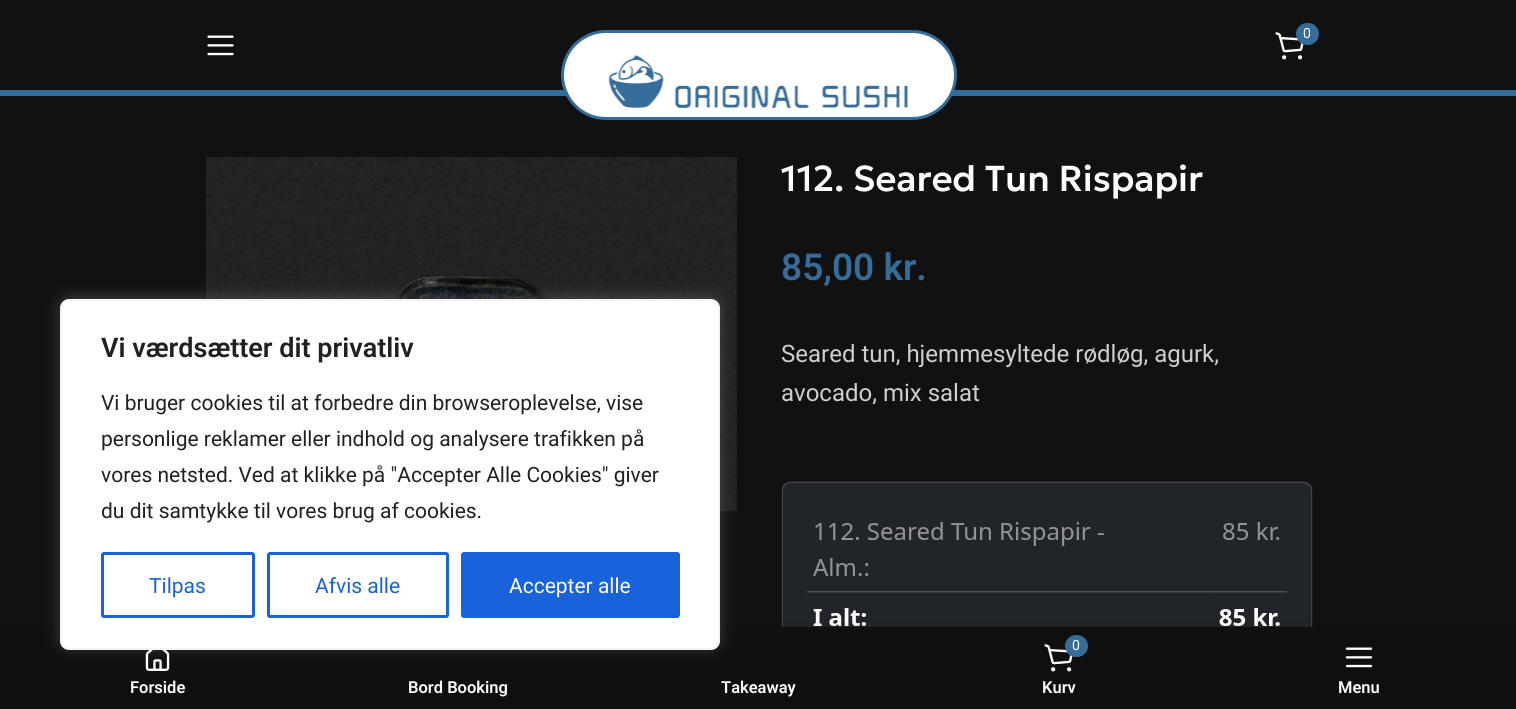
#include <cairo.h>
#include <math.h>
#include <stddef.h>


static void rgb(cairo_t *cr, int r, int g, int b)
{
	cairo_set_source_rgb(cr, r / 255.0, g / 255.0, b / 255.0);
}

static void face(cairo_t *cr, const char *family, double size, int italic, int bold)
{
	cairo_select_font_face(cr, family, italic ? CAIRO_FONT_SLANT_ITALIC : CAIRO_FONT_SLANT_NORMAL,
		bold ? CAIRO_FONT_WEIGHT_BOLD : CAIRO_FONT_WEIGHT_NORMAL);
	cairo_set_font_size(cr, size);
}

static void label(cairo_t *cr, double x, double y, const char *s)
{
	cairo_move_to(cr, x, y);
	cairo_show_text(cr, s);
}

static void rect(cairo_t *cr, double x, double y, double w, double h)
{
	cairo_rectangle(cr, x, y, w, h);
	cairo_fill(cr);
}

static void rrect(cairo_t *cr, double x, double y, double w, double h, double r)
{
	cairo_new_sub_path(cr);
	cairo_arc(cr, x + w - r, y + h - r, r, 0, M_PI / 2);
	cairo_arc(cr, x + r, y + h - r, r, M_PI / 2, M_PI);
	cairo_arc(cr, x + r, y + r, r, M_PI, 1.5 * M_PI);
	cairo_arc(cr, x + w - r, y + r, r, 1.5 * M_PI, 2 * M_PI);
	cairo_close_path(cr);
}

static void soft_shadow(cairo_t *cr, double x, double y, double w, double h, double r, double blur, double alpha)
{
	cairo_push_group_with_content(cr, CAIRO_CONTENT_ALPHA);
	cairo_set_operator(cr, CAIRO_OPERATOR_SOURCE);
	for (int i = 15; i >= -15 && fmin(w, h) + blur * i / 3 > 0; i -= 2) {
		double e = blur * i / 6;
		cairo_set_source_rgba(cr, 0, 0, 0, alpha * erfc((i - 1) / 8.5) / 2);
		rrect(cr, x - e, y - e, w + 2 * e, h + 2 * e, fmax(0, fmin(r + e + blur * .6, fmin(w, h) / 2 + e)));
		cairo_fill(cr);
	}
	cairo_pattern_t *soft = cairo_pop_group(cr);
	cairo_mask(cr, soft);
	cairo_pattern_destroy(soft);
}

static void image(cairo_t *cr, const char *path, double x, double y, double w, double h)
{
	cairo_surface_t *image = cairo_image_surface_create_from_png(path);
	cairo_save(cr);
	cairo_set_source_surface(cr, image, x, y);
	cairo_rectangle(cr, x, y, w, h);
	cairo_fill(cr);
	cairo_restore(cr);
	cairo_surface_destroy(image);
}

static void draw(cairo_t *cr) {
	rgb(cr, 17, 17, 17);
	cairo_paint(cr);
	rgb(cr, 51, 109, 155);
	rect(cr, 0, 90, 1516, 6);
	image(cr, "image0.png", 207, 35, 27, 21);
	rgb(cr, 255, 255, 255);
	rrect(cr, 562.5, 31.5, 393, 87, 43.5);
	cairo_fill_preserve(cr);
	rgb(cr, 51, 109, 155);
	cairo_set_line_width(cr, 3);
	cairo_stroke(cr);
	image(cr, "image1.png", 608, 55, 300, 53);
	image(cr, "image2.png", 1275, 32, 29, 28);
	rgb(cr, 53, 108, 153);
	rrect(cr, 1296, 23, 23, 22, 11);
	cairo_fill(cr);
	face(cr, "Roboto", 14, 0, 0);
	rgb(cr, 255, 255, 255);
	label(cr, 1303, 38, "0");
	image(cr, "image3.png", 206, 157, 531, 354);
	face(cr, "Geologica Medium", 36, 0, 0);
	label(cr, 781, 191, "112. Seared Tun Rispapir");
	face(cr, "Roboto SemiBold", 37, 0, 0);
	rgb(cr, 53, 108, 153);
	label(cr, 781, 280, "85,00 kr.");
	face(cr, "Roboto", 24, 0, 0);
	rgb(cr, 207, 207, 207);
	label(cr, 781, 362, "Seared tun, hjemmesyltede rødløg, agurk,");
	label(cr, 781, 401, "avocado, mix salat");
	image(cr, "image4.png", 781, 481, 532, 146);
	rgb(cr, 0, 0, 0);
	soft_shadow(cr, 0, 627, 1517, 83, 0, 7, 0.12);
	image(cr, "image5.png", 145, 650, 25, 21);
	rgb(cr, 172, 171, 171);
	soft_shadow(cr, 60, 297, 660, 351, 9, 7.5, 0.3);
	rgb(cr, 255, 255, 255);
	rrect(cr, 61, 300, 658, 349, 8);
	cairo_fill_preserve(cr);
	rgb(cr, 244, 244, 244);
	cairo_set_line_width(cr, 2);
	cairo_stroke(cr);
	face(cr, "Roboto SemiBold", 27, 0, 0);
	rgb(cr, 33, 33, 33);
	label(cr, 101, 357, "Vi værdsætter dit privatliv");
	face(cr, "Roboto", 21, 0, 0);
	label(cr, 101, 410, "Vi bruger cookies til at forbedre din browseroplevelse, vise");
	label(cr, 101, 446, "personlige reklamer eller indhold og analysere trafikken på");
	label(cr, 101, 482, "vores netsted. Ved at klikke på \"Accepter Alle Cookies\" giver");
	label(cr, 101, 518, "du dit samtykke til vores brug af cookies.");
	rrect(cr, 102.5, 553.5, 151, 63, 1.5);
	rgb(cr, 24, 99, 220);
	cairo_set_line_width(cr, 3);
	cairo_stroke(cr);
	label(cr, 149, 593, "Tilpas");
	rrect(cr, 268.5, 553.5, 179, 63, 1.5);
	cairo_stroke(cr);
	label(cr, 315, 593, "Afvis alle");
	rrect(cr, 462.5, 553.5, 216, 63, 1.5);
	cairo_fill_preserve(cr);
	cairo_stroke(cr);
	rgb(cr, 255, 255, 255);
	label(cr, 509, 593, "Accepter alle");
	face(cr, "Roboto SemiBold", 16.5, 0, 0);
	label(cr, 130, 693, "Forside");
	label(cr, 408, 693, "Bord Booking");
	label(cr, 721, 693, "Takeaway");
	image(cr, "image6.png", 1044, 644, 29, 28);
	rgb(cr, 53, 108, 153);
	rrect(cr, 1065, 635, 23, 22, 11);
	cairo_fill(cr);
	face(cr, "Roboto", 14, 0, 0);
	rgb(cr, 255, 255, 255);
	label(cr, 1072, 650, "0");
	face(cr, "Roboto SemiBold", 16.5, 0, 0);
	label(cr, 1042, 693, "Kurv");
	image(cr, "image7.png", 1345, 647, 28, 21);
	label(cr, 1338, 693, "Menu");
}

int main(void) {
	cairo_surface_t *surface = cairo_image_surface_create(CAIRO_FORMAT_RGB24, 1516, 709);
	cairo_t *cr = cairo_create(surface);
	cairo_font_options_t *options = cairo_font_options_create();
	cairo_font_options_set_hint_metrics(options, CAIRO_HINT_METRICS_OFF);
	cairo_font_options_set_hint_style(options, CAIRO_HINT_STYLE_NONE);
	cairo_set_font_options(cr, options);
	cairo_set_miter_limit(cr, 4);
	draw(cr);
	cairo_surface_write_to_png(surface, "render.png");
	cairo_font_options_destroy(options);
	cairo_destroy(cr);
	cairo_surface_destroy(surface);
	return 0;
}
